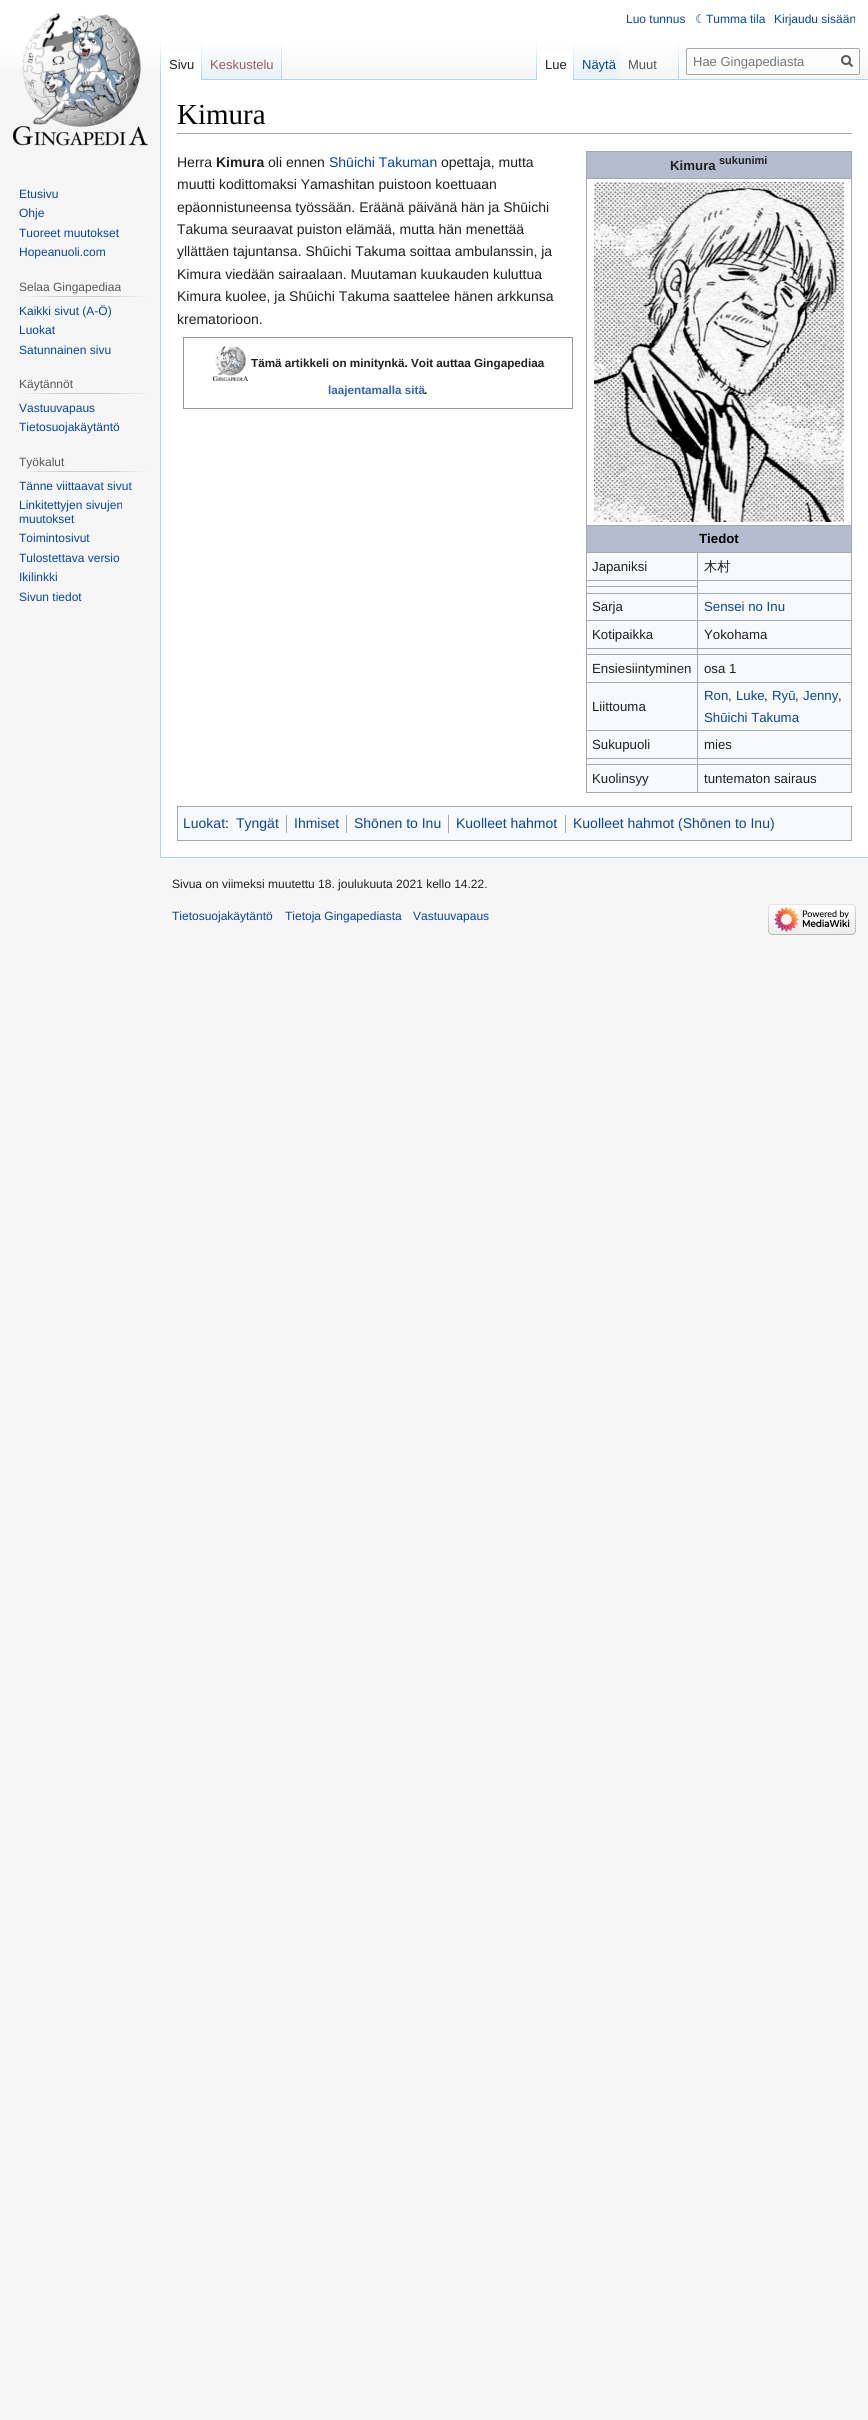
#include <cairo.h>
#include <math.h>
#include <stddef.h>


static void rgb(cairo_t *cr, int r, int g, int b)
{
	cairo_set_source_rgb(cr, r / 255.0, g / 255.0, b / 255.0);
}

static void face(cairo_t *cr, const char *family, double size, int italic, int bold)
{
	cairo_select_font_face(cr, family, italic ? CAIRO_FONT_SLANT_ITALIC : CAIRO_FONT_SLANT_NORMAL,
		bold ? CAIRO_FONT_WEIGHT_BOLD : CAIRO_FONT_WEIGHT_NORMAL);
	cairo_set_font_size(cr, size);
}

static void label(cairo_t *cr, double x, double y, const char *s)
{
	cairo_move_to(cr, x, y);
	cairo_show_text(cr, s);
}

static void rect(cairo_t *cr, double x, double y, double w, double h)
{
	cairo_rectangle(cr, x, y, w, h);
	cairo_fill(cr);
}

static void rrect(cairo_t *cr, double x, double y, double w, double h, double r)
{
	cairo_new_sub_path(cr);
	cairo_arc(cr, x + w - r, y + h - r, r, 0, M_PI / 2);
	cairo_arc(cr, x + r, y + h - r, r, M_PI / 2, M_PI);
	cairo_arc(cr, x + r, y + r, r, M_PI, 1.5 * M_PI);
	cairo_arc(cr, x + w - r, y + r, r, 1.5 * M_PI, 2 * M_PI);
	cairo_close_path(cr);
}

static void image(cairo_t *cr, const char *path, double x, double y, double w, double h)
{
	cairo_surface_t *image = cairo_image_surface_create_from_png(path);
	cairo_save(cr);
	cairo_set_source_surface(cr, image, x, y);
	cairo_rectangle(cr, x, y, w, h);
	cairo_fill(cr);
	cairo_restore(cr);
	cairo_surface_destroy(image);
}

static void draw(cairo_t *cr) {
	cairo_pattern_t *gradient;
	rgb(cr, 246, 246, 246);
	cairo_paint(cr);
	gradient = cairo_pattern_create_linear(434, 0, 434, 80);
	cairo_pattern_add_color_stop_rgba(gradient, 0.5, 1, 1, 1, 1);
	cairo_pattern_add_color_stop_rgba(gradient, 1, 0.965, 0.965, 0.965, 1);
	cairo_set_source(cr, gradient);
	cairo_pattern_destroy(gradient);
	rect(cr, 0, 0, 868, 69);
	face(cr, "Liberation Sans", 12, 0, 0);
	rgb(cr, 6, 69, 173);
	label(cr, 626, 23, "Luo tunnus");
	face(cr, "DejaVu Sans", 12, 0, 0);
	label(cr, 695, 23, "☾");
	face(cr, "Liberation Sans", 12, 0, 0);
	label(cr, 706, 23, "Tumma tila");
	label(cr, 774, 23, "Kirjaudu sisään");
	rgb(cr, 167, 215, 249);
	rect(cr, 160, 857, 708, 1);
	rect(cr, 160, 79, 1, 779);
	gradient = cairo_pattern_create_linear(161, 40, 161, 80);
	cairo_pattern_add_color_stop_rgba(gradient, 0, 0.655, 0.843, 0.976, 0);
	cairo_pattern_add_color_stop_rgba(gradient, 1, 0.655, 0.843, 0.976, 1);
	cairo_set_source(cr, gradient);
	cairo_pattern_destroy(gradient);
	rect(cr, 160, 40, 1, 40);
	rgb(cr, 255, 255, 255);
	rect(cr, 161, 51, 40, 29);
	gradient = cairo_pattern_create_linear(202, 40, 202, 80);
	cairo_pattern_add_color_stop_rgba(gradient, 0, 1, 1, 1, 1);
	cairo_pattern_add_color_stop_rgba(gradient, 1, 0.655, 0.843, 0.976, 1);
	cairo_set_source(cr, gradient);
	cairo_pattern_destroy(gradient);
	rect(cr, 201, 40, 1, 40);
	face(cr, "Liberation Sans", 13, 0, 0);
	rgb(cr, 32, 33, 34);
	label(cr, 169, 69, "Sivu");
	gradient = cairo_pattern_create_linear(242, 80, 242, 40);
	cairo_pattern_add_color_stop_rgba(gradient, 0, 0.467, 0.757, 0.965, 1);
	cairo_pattern_add_color_stop_rgba(gradient, 0.03, 0.91, 0.949, 0.973, 1);
	cairo_pattern_add_color_stop_rgba(gradient, 1, 1, 1, 1, 1);
	cairo_set_source(cr, gradient);
	cairo_pattern_destroy(gradient);
	rect(cr, 202, 46, 80, 34);
	gradient = cairo_pattern_create_linear(282, 40, 282, 80);
	cairo_pattern_add_color_stop_rgba(gradient, 0, 0.655, 0.843, 0.976, 0);
	cairo_pattern_add_color_stop_rgba(gradient, 1, 0.655, 0.843, 0.976, 1);
	cairo_set_source(cr, gradient);
	cairo_pattern_destroy(gradient);
	rect(cr, 281, 40, 1, 40);
	rgb(cr, 165, 88, 88);
	label(cr, 210, 69, "Keskustelu");
	rgb(cr, 167, 215, 249);
	rect(cr, 282, 79, 586, 1);
	gradient = cairo_pattern_create_linear(537, 40, 537, 80);
	cairo_pattern_add_color_stop_rgba(gradient, 0, 0.655, 0.843, 0.976, 0);
	cairo_pattern_add_color_stop_rgba(gradient, 1, 0.655, 0.843, 0.976, 1);
	cairo_set_source(cr, gradient);
	cairo_pattern_destroy(gradient);
	rect(cr, 536, 40, 1, 40);
	rgb(cr, 255, 255, 255);
	rect(cr, 537, 51, 36, 29);
	gradient = cairo_pattern_create_linear(574, 40, 574, 80);
	cairo_pattern_add_color_stop_rgba(gradient, 0, 1, 1, 1, 1);
	cairo_pattern_add_color_stop_rgba(gradient, 1, 0.655, 0.843, 0.976, 1);
	cairo_set_source(cr, gradient);
	cairo_pattern_destroy(gradient);
	rect(cr, 573, 40, 1, 40);
	rgb(cr, 32, 33, 34);
	label(cr, 545, 69, "Lue");
	gradient = cairo_pattern_create_linear(597, 80, 597, 40);
	cairo_pattern_add_color_stop_rgba(gradient, 0, 0.467, 0.757, 0.965, 1);
	cairo_pattern_add_color_stop_rgba(gradient, 0.03, 0.91, 0.949, 0.973, 1);
	cairo_pattern_add_color_stop_rgba(gradient, 1, 1, 1, 1, 1);
	cairo_set_source(cr, gradient);
	cairo_pattern_destroy(gradient);
	rect(cr, 574, 46, 46, 33);
	rgb(cr, 6, 69, 173);
	label(cr, 582, 69, "Näytä");
	gradient = cairo_pattern_create_linear(679, 40, 679, 80);
	cairo_pattern_add_color_stop_rgba(gradient, 0, 0.655, 0.843, 0.976, 0);
	cairo_pattern_add_color_stop_rgba(gradient, 1, 0.655, 0.843, 0.976, 1);
	cairo_set_source(cr, gradient);
	cairo_pattern_destroy(gradient);
	rect(cr, 678, 40, 1, 40);
	rgb(cr, 84, 89, 93);
	label(cr, 628, 69, "Muut");
	cairo_set_source_rgba(cr, 1, 1, 1, 0.5);
	rrect(cr, 686.5, 48.5, 173, 26, 1.5);
	cairo_fill_preserve(cr);
	rgb(cr, 162, 169, 177);
	cairo_set_line_width(cr, 1);
	cairo_stroke(cr);
	rgb(cr, 114, 119, 125);
	label(cr, 693, 66, "Hae Gingapediasta");
	cairo_new_path(cr);
	cairo_move_to(cr, 852.5, 66.5);
	cairo_line_to(cr, 848.5, 62.5);
	rgb(cr, 84, 89, 93);
	cairo_set_line_width(cr, 2);
	cairo_stroke(cr);
	cairo_arc(cr, 846, 60, 4, 0, 2 * M_PI);
	cairo_stroke(cr);
	image(cr, "image0.png", 13, 13, 135, 133);
	face(cr, "Liberation Sans", 12, 0, 0);
	rgb(cr, 6, 69, 173);
	label(cr, 19, 198, "Etusivu");
	label(cr, 19, 217, "Ohje");
	label(cr, 19, 237, "Tuoreet muutokset");
	label(cr, 19, 256, "Hopeanuoli.com");
	gradient = cairo_pattern_create_linear(19, 297, 150, 297);
	cairo_pattern_add_color_stop_rgba(gradient, 0, 0.965, 0.965, 0.965, 1);
	cairo_pattern_add_color_stop_rgba(gradient, 0.33, 0.784, 0.8, 0.82, 1);
	cairo_pattern_add_color_stop_rgba(gradient, 0.66, 0.784, 0.8, 0.82, 1);
	cairo_pattern_add_color_stop_rgba(gradient, 1, 0.965, 0.965, 0.965, 1);
	cairo_set_source(cr, gradient);
	cairo_pattern_destroy(gradient);
	rect(cr, 19, 296, 131, 1);
	rgb(cr, 84, 89, 93);
	label(cr, 19, 291, "Selaa Gingapediaa");
	rgb(cr, 6, 69, 173);
	label(cr, 19, 315, "Kaikki sivut (A-Ö)");
	label(cr, 19, 334, "Luokat");
	label(cr, 19, 354, "Satunnainen sivu");
	gradient = cairo_pattern_create_linear(19, 394, 150, 394);
	cairo_pattern_add_color_stop_rgba(gradient, 0, 0.965, 0.965, 0.965, 1);
	cairo_pattern_add_color_stop_rgba(gradient, 0.33, 0.784, 0.8, 0.82, 1);
	cairo_pattern_add_color_stop_rgba(gradient, 0.66, 0.784, 0.8, 0.82, 1);
	cairo_pattern_add_color_stop_rgba(gradient, 1, 0.965, 0.965, 0.965, 1);
	cairo_set_source(cr, gradient);
	cairo_pattern_destroy(gradient);
	rect(cr, 19, 393, 131, 1);
	rgb(cr, 84, 89, 93);
	label(cr, 19, 388, "Käytännöt");
	rgb(cr, 6, 69, 173);
	label(cr, 19, 412, "Vastuuvapaus");
	label(cr, 19, 431, "Tietosuojakäytäntö");
	gradient = cairo_pattern_create_linear(19, 472, 150, 472);
	cairo_pattern_add_color_stop_rgba(gradient, 0, 0.965, 0.965, 0.965, 1);
	cairo_pattern_add_color_stop_rgba(gradient, 0.33, 0.784, 0.8, 0.82, 1);
	cairo_pattern_add_color_stop_rgba(gradient, 0.66, 0.784, 0.8, 0.82, 1);
	cairo_pattern_add_color_stop_rgba(gradient, 1, 0.965, 0.965, 0.965, 1);
	cairo_set_source(cr, gradient);
	cairo_pattern_destroy(gradient);
	rect(cr, 19, 471, 131, 1);
	rgb(cr, 84, 89, 93);
	label(cr, 19, 466, "Työkalut");
	rgb(cr, 6, 69, 173);
	label(cr, 19, 490, "Tänne viittaavat sivut");
	label(cr, 19, 509, "Linkitettyjen sivujen");
	label(cr, 19, 523, "muutokset");
	label(cr, 19, 542, "Toimintosivut");
	label(cr, 19, 562, "Tulostettava versio");
	label(cr, 19, 581, "Ikilinkki");
	label(cr, 19, 601, "Sivun tiedot");
	rgb(cr, 255, 255, 255);
	rect(cr, 161, 80, 707, 777);
	rgb(cr, 162, 169, 177);
	rect(cr, 177, 133, 675, 1);
	face(cr, "Liberation Serif", 29, 0, 0);
	rgb(cr, 0, 0, 0);
	label(cr, 177, 124, "Kimura");
	face(cr, "Liberation Sans", 14, 0, 0);
	rgb(cr, 32, 33, 34);
	label(cr, 177, 167, "Herra");
	face(cr, "Liberation Sans", 14, 0, 1);
	label(cr, 216, 167, "Kimura");
	face(cr, "Liberation Sans", 14, 0, 0);
	label(cr, 268, 167, "oli ennen");
	rgb(cr, 6, 69, 173);
	label(cr, 329, 167, "Shūichi Takuman");
	rgb(cr, 32, 33, 34);
	label(cr, 441, 167, "opettaja, mutta");
	label(cr, 177, 189, "muutti kodittomaksi Yamashitan puistoon koettuaan");
	label(cr, 177, 212, "epäonnistuneensa työssään. Eräänä päivänä hän ja Shūichi");
	label(cr, 177, 234, "Takuma seuraavat puiston elämää, mutta hän menettää");
	label(cr, 177, 256, "yllättäen tajuntansa. Shūichi Takuma soittaa ambulanssin, ja");
	label(cr, 177, 279, "Kimura viedään sairaalaan. Muutaman kuukauden kuluttua");
	label(cr, 177, 301, "Kimura kuolee, ja Shūichi Takuma saattelee hänen arkkunsa");
	label(cr, 177, 324, "krematorioon.");
	rgb(cr, 248, 249, 250);
	rect(cr, 587, 553, 264, 239);
	rgb(cr, 162, 169, 177);
	rect(cr, 586, 151, 266, 1);
	rect(cr, 851, 151, 1, 642);
	rect(cr, 586, 792, 266, 1);
	rect(cr, 586, 151, 1, 642);
	rgb(cr, 181, 188, 208);
	rect(cr, 587, 152, 264, 26);
	face(cr, "Liberation Sans", 13.25, 0, 1);
	rgb(cr, 32, 33, 34);
	label(cr, 670, 170, "Kimura");
	face(cr, "Liberation Sans", 11, 0, 1);
	label(cr, 719, 164, "sukunimi");
	rgb(cr, 162, 169, 177);
	rect(cr, 586, 178, 266, 1);
	image(cr, "image1.png", 594, 182, 250, 340);
	rgb(cr, 181, 188, 208);
	rect(cr, 587, 526, 264, 26);
	rgb(cr, 162, 169, 177);
	rect(cr, 586, 525, 266, 1);
	face(cr, "Liberation Sans", 13.25, 0, 1);
	rgb(cr, 0, 0, 0);
	label(cr, 699, 543, "Tiedot");
	rgb(cr, 162, 169, 177);
	rect(cr, 697, 552, 155, 1);
	rect(cr, 586, 580, 112, 1);
	rect(cr, 586, 586, 112, 1);
	rect(cr, 697, 593, 155, 1);
	rect(cr, 697, 620, 155, 1);
	rect(cr, 586, 648, 112, 1);
	rect(cr, 697, 654, 155, 1);
	rect(cr, 697, 682, 155, 1);
	rect(cr, 697, 730, 155, 1);
	rect(cr, 586, 758, 112, 1);
	rect(cr, 697, 764, 155, 1);
	rect(cr, 697, 764, 1, 29);
	rect(cr, 586, 764, 112, 1);
	rect(cr, 697, 758, 1, 7);
	rect(cr, 697, 758, 155, 1);
	rect(cr, 697, 730, 1, 29);
	rect(cr, 586, 730, 112, 1);
	rect(cr, 697, 682, 1, 49);
	rect(cr, 586, 682, 112, 1);
	rect(cr, 697, 654, 1, 29);
	rect(cr, 586, 654, 112, 1);
	rect(cr, 697, 648, 1, 7);
	rect(cr, 697, 648, 155, 1);
	rect(cr, 697, 620, 1, 29);
	rect(cr, 586, 620, 112, 1);
	rect(cr, 697, 593, 1, 28);
	rect(cr, 586, 593, 112, 1);
	rect(cr, 697, 586, 1, 8);
	rect(cr, 697, 580, 1, 7);
	rect(cr, 697, 580, 155, 1);
	rect(cr, 697, 552, 1, 29);
	rect(cr, 586, 552, 112, 1);
	face(cr, "Liberation Sans", 13.25, 0, 0);
	rgb(cr, 32, 33, 34);
	label(cr, 592, 571, "Japaniksi");
	face(cr, "WenQuanYi Zen Hei Medium", 13.25, 0, 0);
	label(cr, 704, 571, "木村");
	face(cr, "Liberation Sans", 13.25, 0, 0);
	label(cr, 592, 611, "Sarja");
	rgb(cr, 6, 69, 173);
	label(cr, 704, 611, "Sensei no Inu");
	rgb(cr, 32, 33, 34);
	label(cr, 592, 639, "Kotipaikka");
	label(cr, 704, 639, "Yokohama");
	label(cr, 592, 673, "Ensiesiintyminen");
	label(cr, 704, 673, "osa 1");
	label(cr, 592, 711, "Liittouma");
	rgb(cr, 6, 69, 173);
	label(cr, 704, 700, "Ron");
	rgb(cr, 32, 33, 34);
	label(cr, 728, 700, ",");
	rgb(cr, 6, 69, 173);
	label(cr, 736, 700, "Luke");
	rgb(cr, 32, 33, 34);
	label(cr, 764, 700, ",");
	rgb(cr, 6, 69, 173);
	label(cr, 772, 700, "Ryū");
	rgb(cr, 32, 33, 34);
	label(cr, 795, 700, ",");
	rgb(cr, 6, 69, 173);
	label(cr, 803, 700, "Jenny");
	rgb(cr, 32, 33, 34);
	label(cr, 838, 700, ",");
	rgb(cr, 6, 69, 173);
	label(cr, 704, 722, "Shūichi Takuma");
	rgb(cr, 32, 33, 34);
	label(cr, 592, 749, "Sukupuoli");
	label(cr, 704, 749, "mies");
	label(cr, 592, 783, "Kuolinsyy");
	label(cr, 704, 783, "tuntematon sairaus");
	cairo_rectangle(cr, 183.5, 337.5, 389, 71);
	rgb(cr, 153, 153, 153);
	cairo_set_line_width(cr, 1);
	cairo_stroke(cr);
	image(cr, "image2.png", 213, 346, 35, 35);
	face(cr, "Liberation Sans", 11.7, 0, 1);
	rgb(cr, 32, 33, 34);
	label(cr, 251, 367, "Tämä artikkeli on minitynkä. Voit auttaa Gingapediaa");
	rgb(cr, 51, 102, 187);
	label(cr, 328, 394, "laajentamalla sitä");
	rgb(cr, 32, 33, 34);
	label(cr, 424, 394, ".");
	rgb(cr, 248, 249, 250);
	cairo_rectangle(cr, 177.5, 806.5, 674, 34);
	cairo_fill_preserve(cr);
	rgb(cr, 162, 169, 177);
	cairo_stroke(cr);
	face(cr, "Liberation Sans", 14, 0, 0);
	rgb(cr, 6, 69, 173);
	label(cr, 183, 828, "Luokat");
	rgb(cr, 32, 33, 34);
	label(cr, 225, 828, ":");
	rgb(cr, 6, 69, 173);
	label(cr, 236, 828, "Tyngät");
	rgb(cr, 162, 169, 177);
	rect(cr, 286, 815, 1, 18);
	rgb(cr, 6, 69, 173);
	label(cr, 294, 828, "Ihmiset");
	rgb(cr, 162, 169, 177);
	rect(cr, 346, 815, 1, 18);
	rgb(cr, 6, 69, 173);
	label(cr, 354, 828, "Shōnen to Inu");
	rgb(cr, 162, 169, 177);
	rect(cr, 448, 815, 1, 18);
	rgb(cr, 6, 69, 173);
	label(cr, 456, 828, "Kuolleet hahmot");
	rgb(cr, 162, 169, 177);
	rect(cr, 565, 815, 1, 18);
	rgb(cr, 6, 69, 173);
	label(cr, 573, 828, "Kuolleet hahmot (Shōnen to Inu)");
	face(cr, "Liberation Sans", 12, 0, 0);
	rgb(cr, 32, 33, 34);
	label(cr, 172, 888, "Sivua on viimeksi muutettu 18. joulukuuta 2021 kello 14.22.");
	rgb(cr, 6, 69, 173);
	label(cr, 172, 920, "Tietosuojakäytäntö");
	label(cr, 285, 920, "Tietoja Gingapediasta");
	label(cr, 413, 920, "Vastuuvapaus");
	image(cr, "image3.png", 768, 904, 88, 31);
}

int main(void) {
	cairo_surface_t *surface = cairo_image_surface_create(CAIRO_FORMAT_RGB24, 868, 2420);
	cairo_t *cr = cairo_create(surface);
	cairo_font_options_t *options = cairo_font_options_create();
	cairo_font_options_set_hint_metrics(options, CAIRO_HINT_METRICS_OFF);
	cairo_font_options_set_hint_style(options, CAIRO_HINT_STYLE_NONE);
	cairo_set_font_options(cr, options);
	cairo_set_miter_limit(cr, 4);
	draw(cr);
	cairo_surface_write_to_png(surface, "render.png");
	cairo_font_options_destroy(options);
	cairo_destroy(cr);
	cairo_surface_destroy(surface);
	return 0;
}
